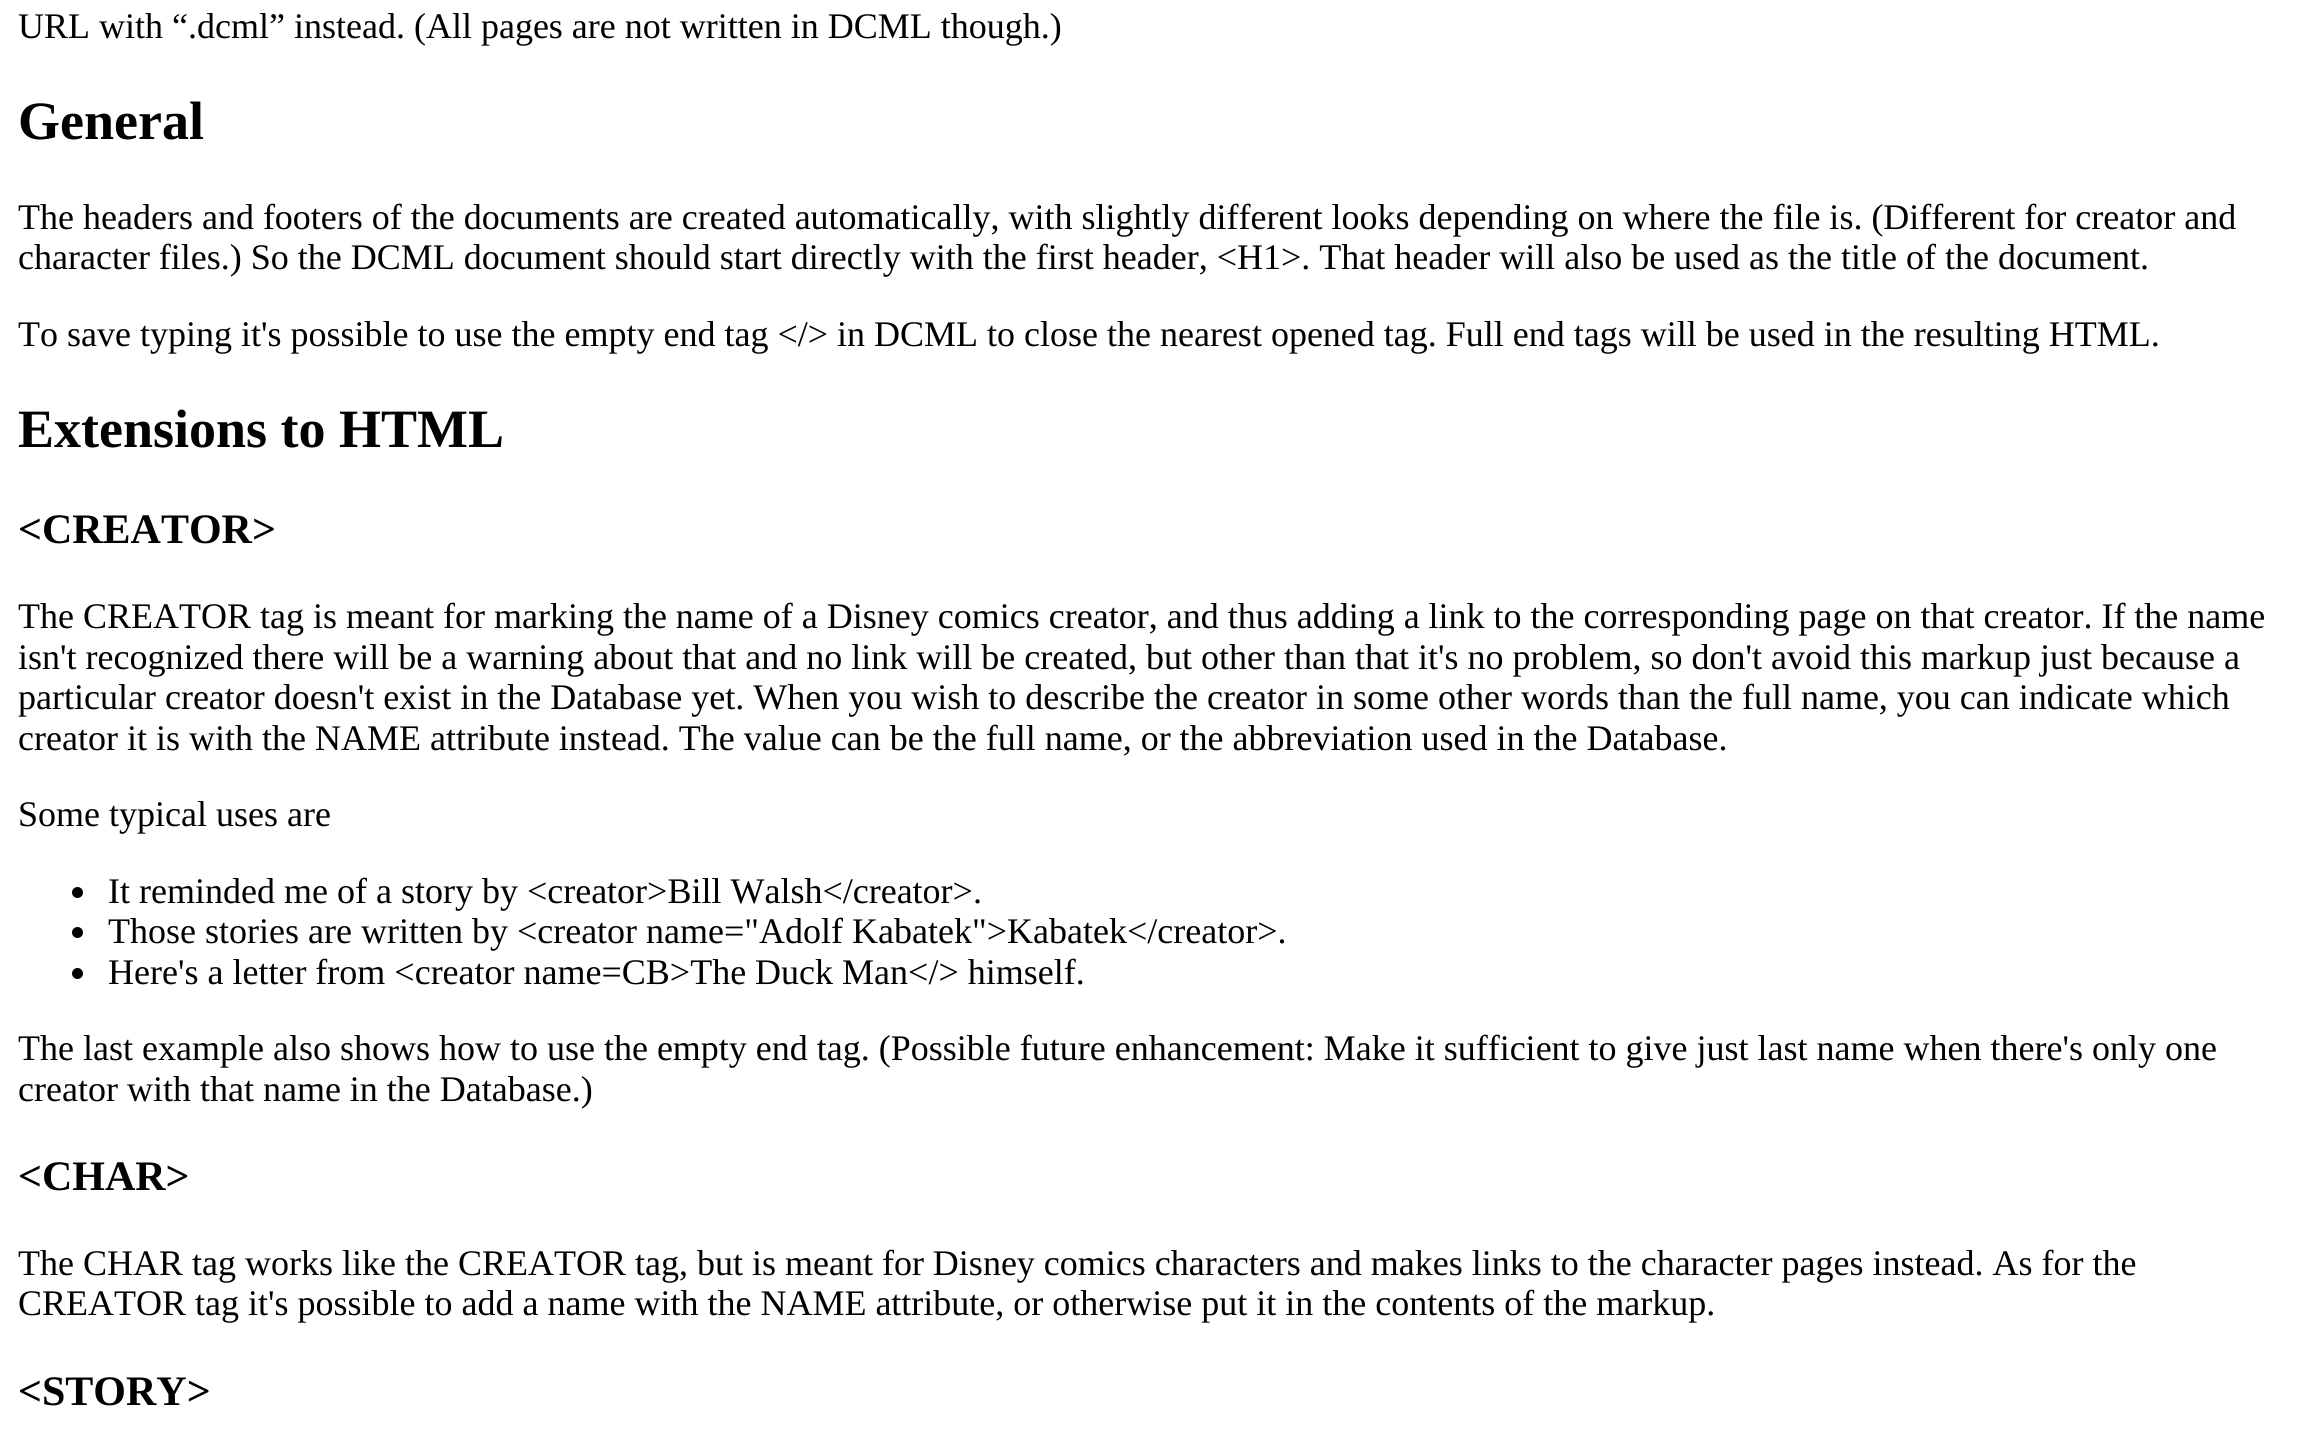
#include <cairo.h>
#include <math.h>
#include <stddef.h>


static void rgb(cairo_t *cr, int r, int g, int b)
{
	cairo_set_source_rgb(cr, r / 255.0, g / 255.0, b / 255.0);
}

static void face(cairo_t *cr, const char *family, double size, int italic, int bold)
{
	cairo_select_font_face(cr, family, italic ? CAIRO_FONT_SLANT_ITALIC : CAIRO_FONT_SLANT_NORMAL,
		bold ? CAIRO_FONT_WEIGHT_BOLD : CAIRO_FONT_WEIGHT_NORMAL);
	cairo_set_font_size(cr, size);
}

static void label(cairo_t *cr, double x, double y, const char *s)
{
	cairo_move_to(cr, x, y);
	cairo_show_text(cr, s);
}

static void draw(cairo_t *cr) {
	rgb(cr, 255, 255, 255);
	cairo_paint(cr);
	face(cr, "Liberation Serif", 36, 0, 0);
	rgb(cr, 0, 0, 0);
	label(cr, 18, 38, "URL with “.dcml” instead. (All pages are not written in DCML though.)");
	face(cr, "Liberation Serif", 54, 0, 1);
	label(cr, 18, 139, "General");
	face(cr, "Liberation Serif", 36, 0, 0);
	label(cr, 18, 229, "The headers and footers of the documents are created automatically, with slightly different looks depending on where the file is. (Different for creator and");
	label(cr, 18, 269, "character files.) So the DCML document should start directly with the first header, <H1>. That header will also be used as the title of the document.");
	label(cr, 18, 346, "To save typing it's possible to use the empty end tag </> in DCML to close the nearest opened tag. Full end tags will be used in the resulting HTML.");
	face(cr, "Liberation Serif", 54, 0, 1);
	label(cr, 18, 447, "Extensions to HTML");
	face(cr, "Liberation Serif", 42, 0, 1);
	label(cr, 18, 543, "<CREATOR>");
	face(cr, "Liberation Serif", 36, 0, 0);
	label(cr, 18, 628, "The CREATOR tag is meant for marking the name of a Disney comics creator, and thus adding a link to the corresponding page on that creator. If the name");
	label(cr, 18, 669, "isn't recognized there will be a warning about that and no link will be created, but other than that it's no problem, so don't avoid this markup just because a");
	label(cr, 18, 709, "particular creator doesn't exist in the Database yet. When you wish to describe the creator in some other words than the full name, you can indicate which");
	label(cr, 18, 750, "creator it is with the NAME attribute instead. The value can be the full name, or the abbreviation used in the Database.");
	label(cr, 18, 826, "Some typical uses are");
	cairo_new_path(cr);
	cairo_arc(cr, 77.5, 892.5, 5.5, 0, 2 * M_PI);
	cairo_fill(cr);
	label(cr, 108, 903, "It reminded me of a story by <creator>Bill Walsh</creator>.");
	cairo_new_path(cr);
	cairo_arc(cr, 77.5, 932.5, 5.5, 0, 2 * M_PI);
	cairo_fill(cr);
	label(cr, 108, 943, "Those stories are written by <creator name=\"Adolf Kabatek\">Kabatek</creator>.");
	cairo_new_path(cr);
	cairo_arc(cr, 77.5, 973.5, 5.5, 0, 2 * M_PI);
	cairo_fill(cr);
	label(cr, 108, 984, "Here's a letter from <creator name=CB>The Duck Man</> himself.");
	label(cr, 18, 1060, "The last example also shows how to use the empty end tag. (Possible future enhancement: Make it sufficient to give just last name when there's only one");
	label(cr, 18, 1101, "creator with that name in the Database.)");
	face(cr, "Liberation Serif", 42, 0, 1);
	label(cr, 18, 1190, "<CHAR>");
	face(cr, "Liberation Serif", 36, 0, 0);
	label(cr, 18, 1275, "The CHAR tag works like the CREATOR tag, but is meant for Disney comics characters and makes links to the character pages instead. As for the");
	label(cr, 18, 1315, "CREATOR tag it's possible to add a name with the NAME attribute, or otherwise put it in the contents of the markup.");
	face(cr, "Liberation Serif", 42, 0, 1);
	label(cr, 18, 1405, "<STORY>");
}

int main(void) {
	cairo_surface_t *surface = cairo_image_surface_create(CAIRO_FORMAT_RGB24, 2314, 1439);
	cairo_t *cr = cairo_create(surface);
	cairo_font_options_t *options = cairo_font_options_create();
	cairo_font_options_set_hint_metrics(options, CAIRO_HINT_METRICS_OFF);
	cairo_font_options_set_hint_style(options, CAIRO_HINT_STYLE_NONE);
	cairo_set_font_options(cr, options);
	cairo_set_miter_limit(cr, 4);
	draw(cr);
	cairo_surface_write_to_png(surface, "render.png");
	cairo_font_options_destroy(options);
	cairo_destroy(cr);
	cairo_surface_destroy(surface);
	return 0;
}
